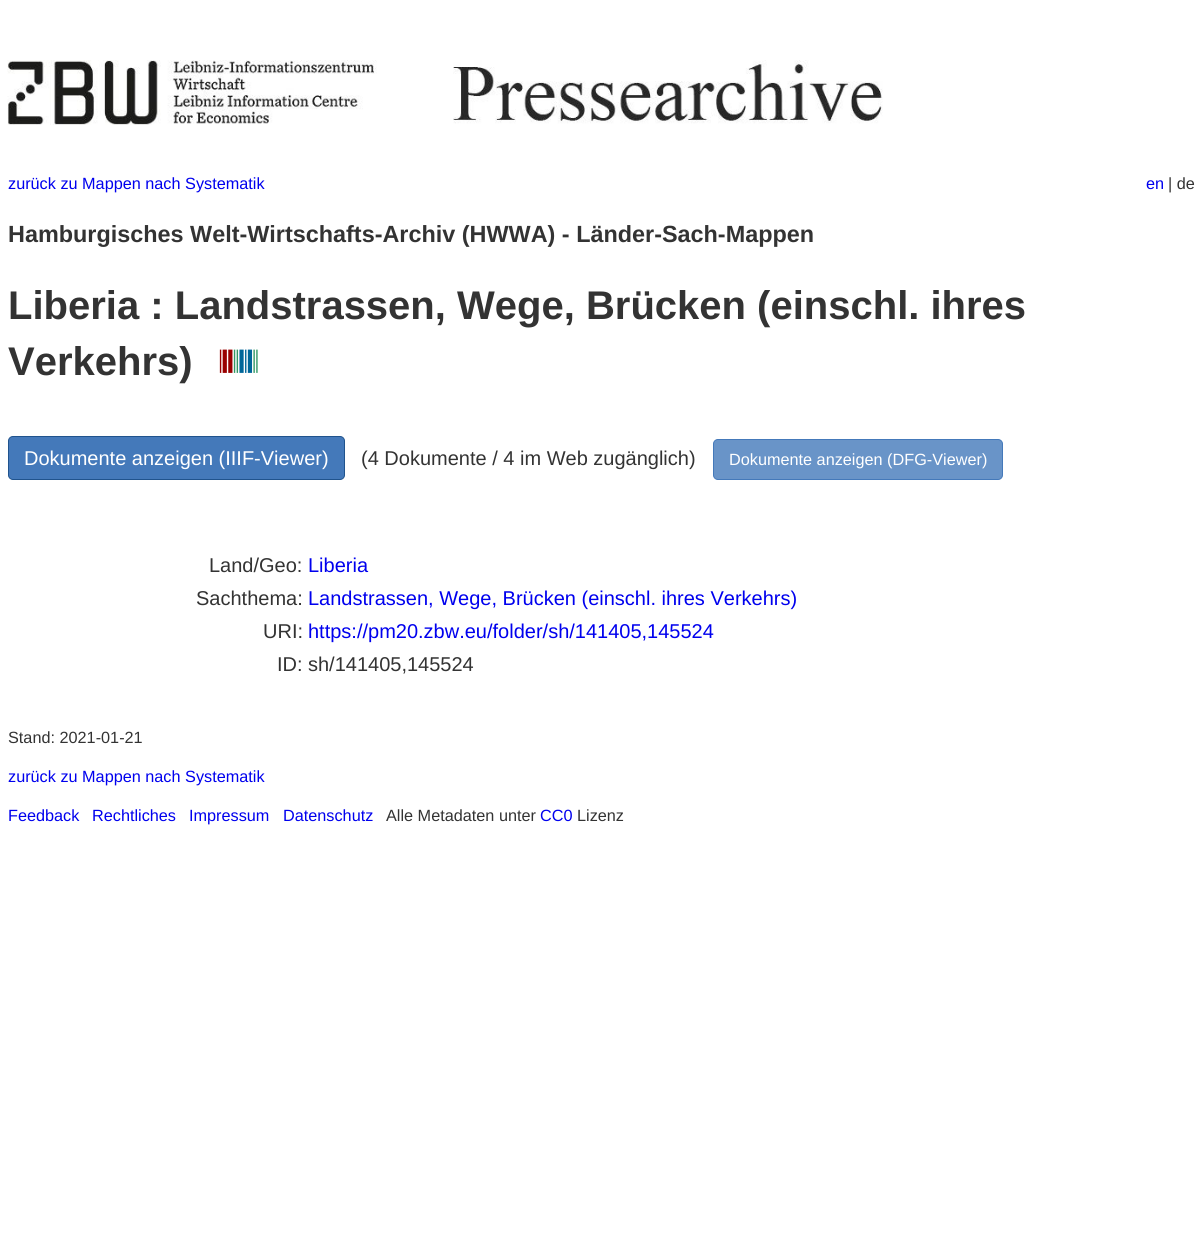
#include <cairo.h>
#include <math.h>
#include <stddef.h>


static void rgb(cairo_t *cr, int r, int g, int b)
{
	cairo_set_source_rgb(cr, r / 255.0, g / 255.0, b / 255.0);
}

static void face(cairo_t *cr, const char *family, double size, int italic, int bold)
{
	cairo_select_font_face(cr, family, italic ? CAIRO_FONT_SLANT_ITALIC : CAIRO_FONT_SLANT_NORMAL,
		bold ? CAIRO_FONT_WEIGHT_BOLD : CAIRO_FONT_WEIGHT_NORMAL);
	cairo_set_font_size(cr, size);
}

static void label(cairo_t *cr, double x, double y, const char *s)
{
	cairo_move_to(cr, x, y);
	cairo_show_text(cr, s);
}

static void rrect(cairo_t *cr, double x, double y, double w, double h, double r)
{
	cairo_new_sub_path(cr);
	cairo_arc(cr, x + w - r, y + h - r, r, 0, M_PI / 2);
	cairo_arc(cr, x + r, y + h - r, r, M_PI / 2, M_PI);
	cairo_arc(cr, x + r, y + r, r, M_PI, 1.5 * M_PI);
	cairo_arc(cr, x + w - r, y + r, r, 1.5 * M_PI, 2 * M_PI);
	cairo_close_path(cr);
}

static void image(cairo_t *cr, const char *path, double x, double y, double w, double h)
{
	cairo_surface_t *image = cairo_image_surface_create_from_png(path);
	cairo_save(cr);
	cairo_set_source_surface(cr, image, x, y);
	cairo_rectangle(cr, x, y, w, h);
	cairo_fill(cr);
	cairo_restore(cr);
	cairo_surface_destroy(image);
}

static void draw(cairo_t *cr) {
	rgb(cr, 255, 255, 255);
	cairo_paint(cr);
	image(cr, "image0.png", 7, 60, 876, 65);
	face(cr, "Liberation Sans", 16.25, 0, 0);
	rgb(cr, 0, 0, 238);
	label(cr, 8, 189, "zurück zu Mappen nach Systematik");
	label(cr, 1146, 189, "en");
	rgb(cr, 51, 51, 51);
	label(cr, 1168, 189, "| de");
	face(cr, "Liberation Sans", 23.4, 0, 1);
	label(cr, 8, 242, "Hamburgisches Welt-Wirtschafts-Archiv (HWWA) - Länder-Sach-Mappen");
	face(cr, "Liberation Sans", 40, 0, 1);
	label(cr, 8, 319, "Liberia : Landstrassen, Wege, Brücken (einschl. ihres");
	label(cr, 8, 375, "Verkehrs)");
	image(cr, "image1.png", 219, 349, 39, 24);
	rgb(cr, 68, 121, 186);
	rrect(cr, 8.5, 436.5, 336, 43, 4.5);
	cairo_fill_preserve(cr);
	rgb(cr, 32, 83, 141);
	cairo_set_line_width(cr, 1);
	cairo_stroke(cr);
	face(cr, "Liberation Sans", 20, 0, 0);
	rgb(cr, 255, 255, 255);
	label(cr, 24, 465, "Dokumente anzeigen (IIIF-Viewer)");
	rgb(cr, 51, 51, 51);
	label(cr, 361, 465, "(4 Dokumente / 4 im Web zugänglich)");
	rgb(cr, 105, 148, 200);
	rrect(cr, 713.5, 439.5, 289, 40, 4.5);
	cairo_fill_preserve(cr);
	rgb(cr, 68, 121, 186);
	cairo_stroke(cr);
	face(cr, "Liberation Sans", 16.25, 0, 0);
	rgb(cr, 255, 255, 255);
	label(cr, 729, 465, "Dokumente anzeigen (DFG-Viewer)");
	face(cr, "Liberation Sans", 20, 0, 0);
	rgb(cr, 51, 51, 51);
	label(cr, 209, 572, "Land/Geo:");
	rgb(cr, 0, 0, 238);
	label(cr, 308, 572, "Liberia");
	rgb(cr, 51, 51, 51);
	label(cr, 196, 605, "Sachthema:");
	rgb(cr, 0, 0, 238);
	label(cr, 308, 605, "Landstrassen, Wege, Brücken (einschl. ihres Verkehrs)");
	rgb(cr, 51, 51, 51);
	label(cr, 263, 638, "URI:");
	rgb(cr, 0, 0, 238);
	label(cr, 308, 638, "https://pm20.zbw.eu/folder/sh/141405,145524");
	rgb(cr, 51, 51, 51);
	label(cr, 277, 671, "ID:");
	label(cr, 308, 671, "sh/141405,145524");
	face(cr, "Liberation Sans", 16.25, 0, 0);
	label(cr, 8, 743, "Stand: 2021-01-21");
	rgb(cr, 0, 0, 238);
	label(cr, 8, 782, "zurück zu Mappen nach Systematik");
	label(cr, 8, 821, "Feedback");
	label(cr, 92, 821, "Rechtliches");
	label(cr, 189, 821, "Impressum");
	label(cr, 283, 821, "Datenschutz");
	rgb(cr, 51, 51, 51);
	label(cr, 386, 821, "Alle Metadaten unter");
	rgb(cr, 0, 0, 238);
	label(cr, 540, 821, "CC0");
	rgb(cr, 51, 51, 51);
	label(cr, 577, 821, "Lizenz");
}

int main(void) {
	cairo_surface_t *surface = cairo_image_surface_create(CAIRO_FORMAT_RGB24, 1202, 1251);
	cairo_t *cr = cairo_create(surface);
	cairo_font_options_t *options = cairo_font_options_create();
	cairo_font_options_set_hint_metrics(options, CAIRO_HINT_METRICS_OFF);
	cairo_font_options_set_hint_style(options, CAIRO_HINT_STYLE_NONE);
	cairo_set_font_options(cr, options);
	cairo_set_miter_limit(cr, 4);
	draw(cr);
	cairo_surface_write_to_png(surface, "render.png");
	cairo_font_options_destroy(options);
	cairo_destroy(cr);
	cairo_surface_destroy(surface);
	return 0;
}
